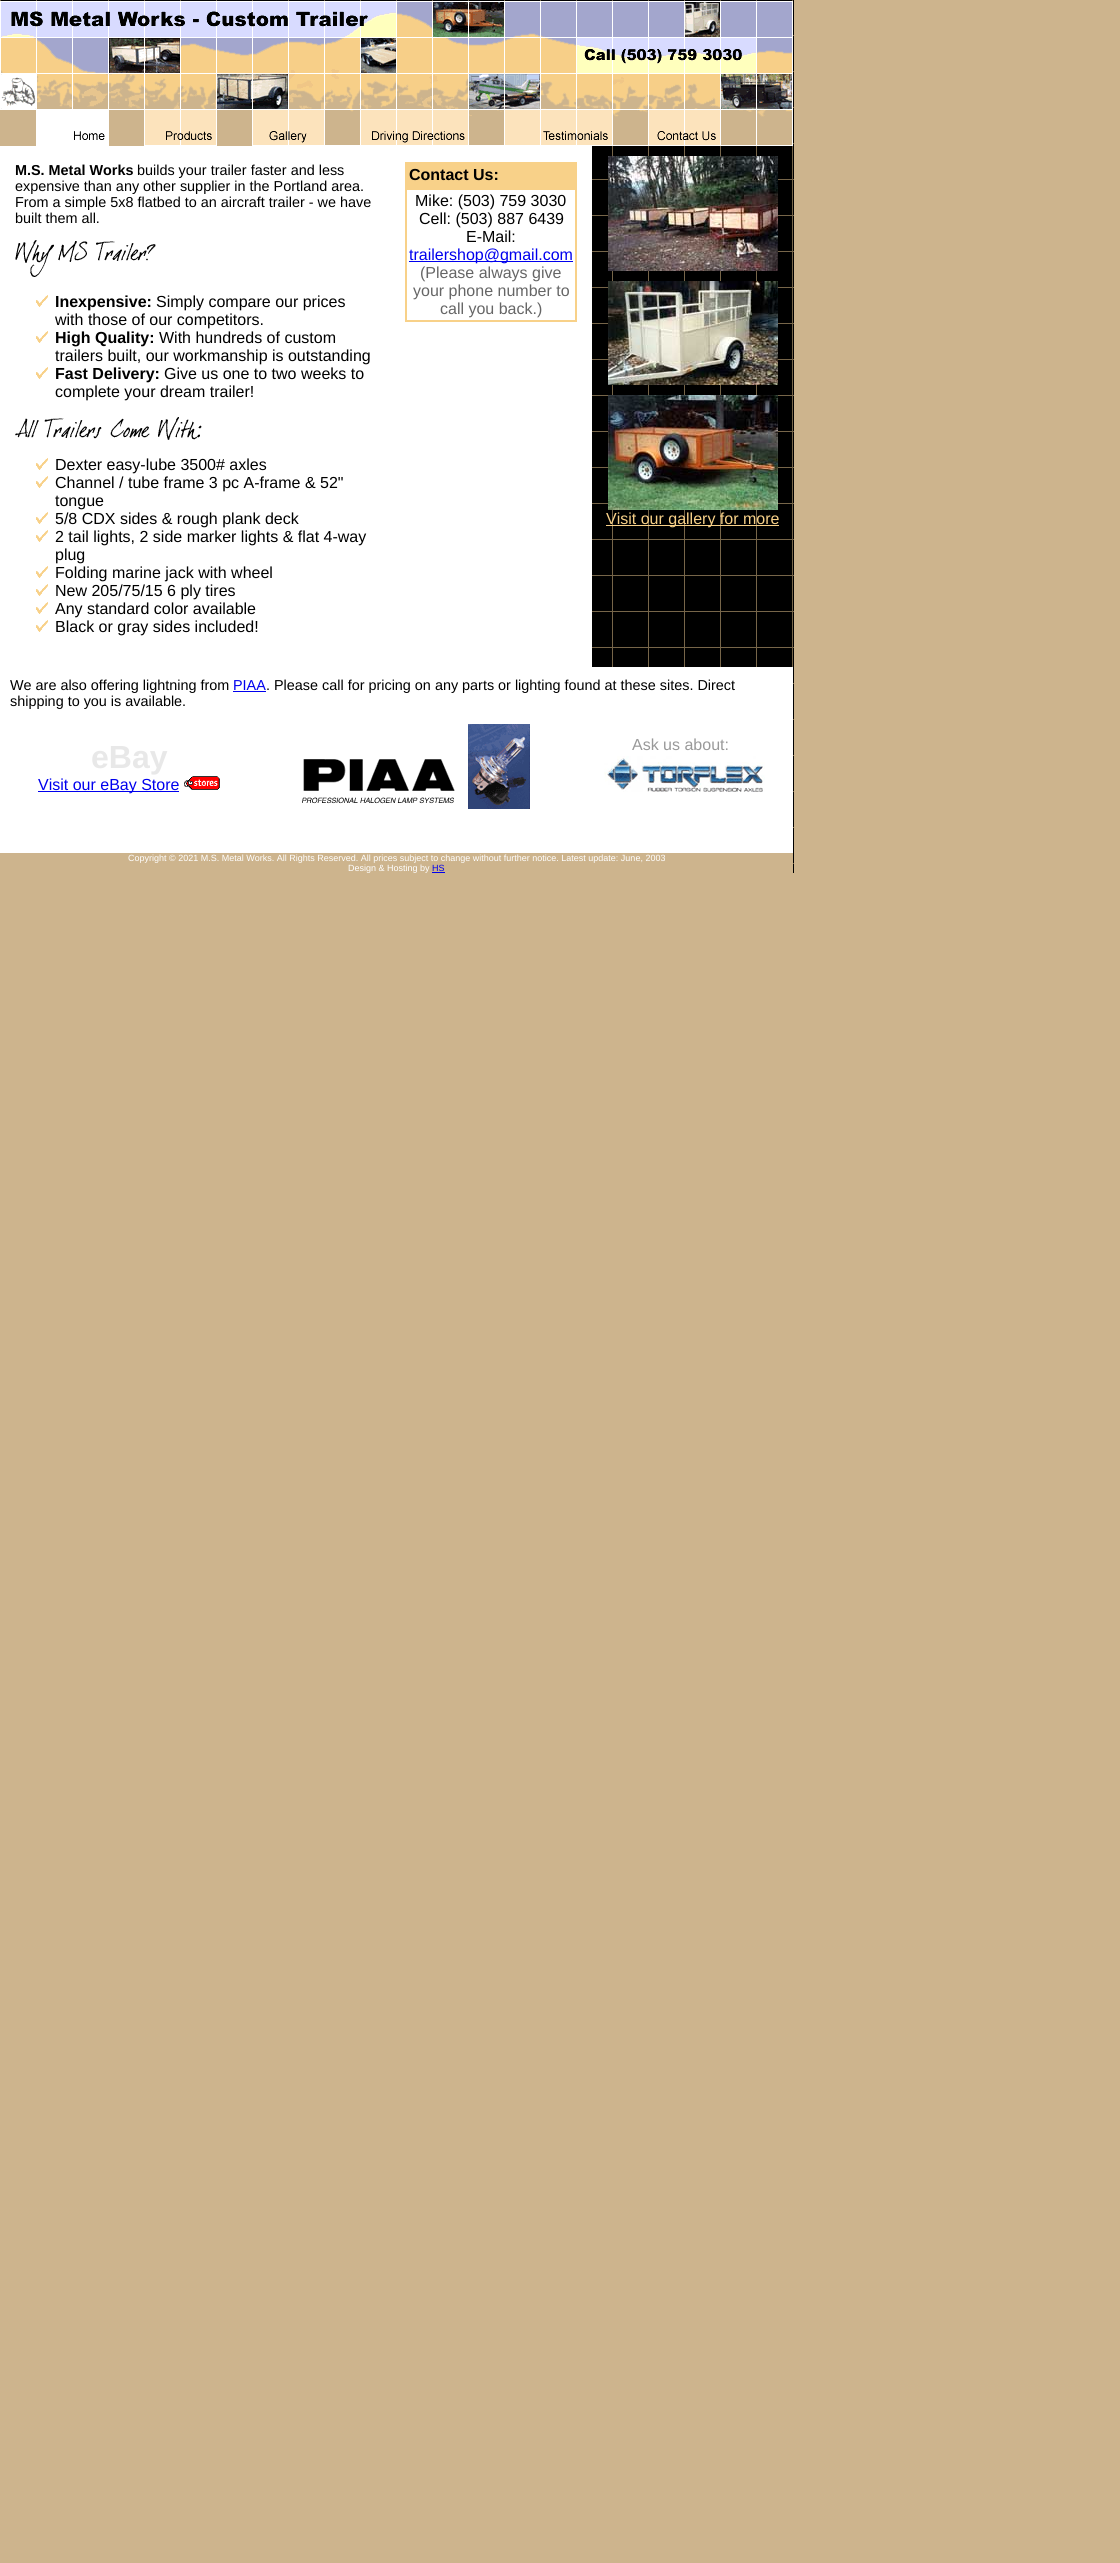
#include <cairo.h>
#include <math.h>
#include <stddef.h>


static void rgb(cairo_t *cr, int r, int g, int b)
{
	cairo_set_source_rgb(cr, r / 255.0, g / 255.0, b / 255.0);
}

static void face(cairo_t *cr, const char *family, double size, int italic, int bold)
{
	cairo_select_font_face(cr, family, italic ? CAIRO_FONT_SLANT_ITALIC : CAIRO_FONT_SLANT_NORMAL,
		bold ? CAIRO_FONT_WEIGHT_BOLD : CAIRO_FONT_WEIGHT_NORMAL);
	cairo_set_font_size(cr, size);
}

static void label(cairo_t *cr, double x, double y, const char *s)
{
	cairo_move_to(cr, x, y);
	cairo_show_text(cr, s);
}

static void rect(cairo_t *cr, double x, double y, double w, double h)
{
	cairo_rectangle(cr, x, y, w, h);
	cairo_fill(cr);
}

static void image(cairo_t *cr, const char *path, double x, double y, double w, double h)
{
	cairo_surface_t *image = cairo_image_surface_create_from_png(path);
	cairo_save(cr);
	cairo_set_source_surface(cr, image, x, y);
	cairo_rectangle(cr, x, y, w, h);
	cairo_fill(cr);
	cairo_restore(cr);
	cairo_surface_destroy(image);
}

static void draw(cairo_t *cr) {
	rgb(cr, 205, 180, 141);
	cairo_paint(cr);
	image(cr, "image0.png", 0, 0, 794, 873);
	image(cr, "image1.png", 0, 1, 793, 109);
	rgb(cr, 205, 180, 141);
	rect(cr, 0, 110, 36, 36);
	image(cr, "image2.png", 36, 110, 73, 36);
	rect(cr, 109, 110, 35, 36);
	image(cr, "image3.png", 144, 110, 73, 36);
	rect(cr, 217, 110, 35, 36);
	image(cr, "image4.png", 252, 110, 73, 36);
	image(cr, "image5.png", 325, 110, 35, 36);
	image(cr, "image6.png", 360, 110, 109, 36);
	image(cr, "image7.png", 469, 110, 34, 36);
	image(cr, "image8.png", 503, 110, 110, 36);
	image(cr, "image9.png", 613, 110, 35, 36);
	image(cr, "image10.png", 648, 110, 73, 36);
	image(cr, "image11.png", 721, 110, 72, 36);
	rgb(cr, 255, 255, 255);
	rect(cr, 0, 146, 592, 521);
	face(cr, "Liberation Sans", 14.4, 0, 1);
	rgb(cr, 0, 0, 0);
	label(cr, 15, 175, "M.S. Metal Works");
	face(cr, "Liberation Sans", 14.4, 0, 0);
	label(cr, 137, 175, "builds your trailer faster and less");
	label(cr, 15, 191, "expensive than any other supplier in the Portland area.");
	label(cr, 15, 207, "From a simple 5x8 flatbed to an aircraft trailer - we have");
	label(cr, 15, 223, "built them all.");
	image(cr, "image12.png", 15, 240, 141, 37);
	image(cr, "image13.png", 36, 295, 12, 12);
	face(cr, "Liberation Sans", 16, 0, 1);
	label(cr, 55, 307, "Inexpensive:");
	face(cr, "Liberation Sans", 16, 0, 0);
	label(cr, 156, 307, "Simply compare our prices");
	label(cr, 55, 325, "with those of our competitors.");
	image(cr, "image13.png", 36, 331, 12, 12);
	face(cr, "Liberation Sans", 16, 0, 1);
	label(cr, 55, 343, "High Quality:");
	face(cr, "Liberation Sans", 16, 0, 0);
	label(cr, 159, 343, "With hundreds of custom");
	label(cr, 55, 361, "trailers built, our workmanship is outstanding");
	image(cr, "image13.png", 36, 367, 12, 12);
	face(cr, "Liberation Sans", 16, 0, 1);
	label(cr, 55, 379, "Fast Delivery:");
	face(cr, "Liberation Sans", 16, 0, 0);
	label(cr, 164, 379, "Give us one to two weeks to");
	label(cr, 55, 397, "complete your dream trailer!");
	image(cr, "image14.png", 15, 417, 187, 23);
	image(cr, "image13.png", 36, 458, 12, 12);
	label(cr, 55, 470, "Dexter easy-lube 3500# axles");
	image(cr, "image13.png", 36, 476, 12, 12);
	label(cr, 55, 488, "Channel / tube frame 3 pc A-frame & 52\"");
	label(cr, 55, 506, "tongue");
	image(cr, "image13.png", 36, 512, 12, 12);
	label(cr, 55, 524, "5/8 CDX sides & rough plank deck");
	image(cr, "image13.png", 36, 530, 12, 12);
	label(cr, 55, 542, "2 tail lights, 2 side marker lights & flat 4-way");
	label(cr, 55, 560, "plug");
	image(cr, "image13.png", 36, 566, 12, 12);
	label(cr, 55, 578, "Folding marine jack with wheel");
	image(cr, "image13.png", 36, 584, 12, 12);
	label(cr, 55, 596, "New 205/75/15 6 ply tires");
	image(cr, "image13.png", 36, 602, 12, 12);
	label(cr, 55, 614, "Any standard color available");
	image(cr, "image13.png", 36, 620, 12, 12);
	label(cr, 55, 632, "Black or gray sides included!");
	rgb(cr, 248, 209, 137);
	rect(cr, 405, 162, 172, 26);
	face(cr, "Liberation Sans", 16, 0, 1);
	rgb(cr, 0, 0, 0);
	label(cr, 409, 180, "Contact Us:");
	cairo_rectangle(cr, 406, 189, 170, 132);
	rgb(cr, 248, 209, 137);
	cairo_stroke(cr);
	face(cr, "Liberation Sans", 16, 0, 0);
	rgb(cr, 0, 0, 0);
	label(cr, 415, 206, "Mike: (503) 759 3030");
	label(cr, 419, 224, "Cell: (503) 887 6439");
	label(cr, 466, 242, "E-Mail:");
	rgb(cr, 0, 0, 238);
	rect(cr, 409, 261, 164, 1);
	label(cr, 409, 260, "trailershop@gmail.com");
	rgb(cr, 102, 102, 102);
	label(cr, 420, 278, "(Please always give");
	label(cr, 413, 296, "your phone number to");
	label(cr, 440, 314, "call you back.)");
	image(cr, "image15.png", 608, 156, 170, 115);
	image(cr, "image16.png", 608, 281, 170, 104);
	image(cr, "image17.png", 608, 395, 170, 115);
	rgb(cr, 248, 209, 137);
	rect(cr, 606, 525, 173, 1);
	label(cr, 606, 524, "Visit our gallery for more");
	rgb(cr, 255, 255, 255);
	rect(cr, 0, 667, 793, 186);
	face(cr, "Liberation Sans", 14.4, 0, 0);
	rgb(cr, 0, 0, 0);
	label(cr, 10, 690, "We are also offering lightning from");
	rgb(cr, 0, 0, 238);
	label(cr, 233, 690, "PIAA");
	rect(cr, 233, 691, 33, 1);
	rgb(cr, 0, 0, 0);
	label(cr, 266, 690, ". Please call for pricing on any parts or lighting found at these sites. Direct");
	label(cr, 10, 706, "shipping to you is available.");
	image(cr, "image18.png", 302, 759, 153, 45);
	image(cr, "image19.png", 468, 724, 62, 85);
	face(cr, "Liberation Sans", 16, 0, 0);
	rgb(cr, 153, 153, 153);
	label(cr, 632, 750, "Ask us about:");
	image(cr, "image20.png", 604, 756, 161, 36);
	face(cr, "Liberation Sans", 32, 0, 1);
	rgb(cr, 232, 232, 232);
	label(cr, 91, 768, "eBay");
	rgb(cr, 0, 0, 238);
	rect(cr, 38, 791, 141, 1);
	face(cr, "Liberation Sans", 16, 0, 0);
	label(cr, 38, 790, "Visit our eBay Store");
	image(cr, "image21.png", 184, 776, 36, 14);
	rgb(cr, 205, 180, 141);
	rect(cr, 0, 853, 793, 20);
	face(cr, "Liberation Sans", 9, 0, 0);
	rgb(cr, 255, 255, 255);
	label(cr, 128, 861, "Copyright © 2021 M.S. Metal Works. All Rights Reserved. All prices subject to change without further notice. Latest update: June, 2003");
	label(cr, 348, 871, "Design & Hosting by");
	rgb(cr, 0, 0, 238);
	label(cr, 432, 871, "HS");
	rect(cr, 432, 872, 13, 1);
}

int main(void) {
	cairo_surface_t *surface = cairo_image_surface_create(CAIRO_FORMAT_RGB24, 1120, 2563);
	cairo_t *cr = cairo_create(surface);
	cairo_font_options_t *options = cairo_font_options_create();
	cairo_font_options_set_hint_metrics(options, CAIRO_HINT_METRICS_OFF);
	cairo_font_options_set_hint_style(options, CAIRO_HINT_STYLE_NONE);
	cairo_set_font_options(cr, options);
	cairo_set_miter_limit(cr, 4);
	draw(cr);
	cairo_surface_write_to_png(surface, "render.png");
	cairo_font_options_destroy(options);
	cairo_destroy(cr);
	cairo_surface_destroy(surface);
	return 0;
}
